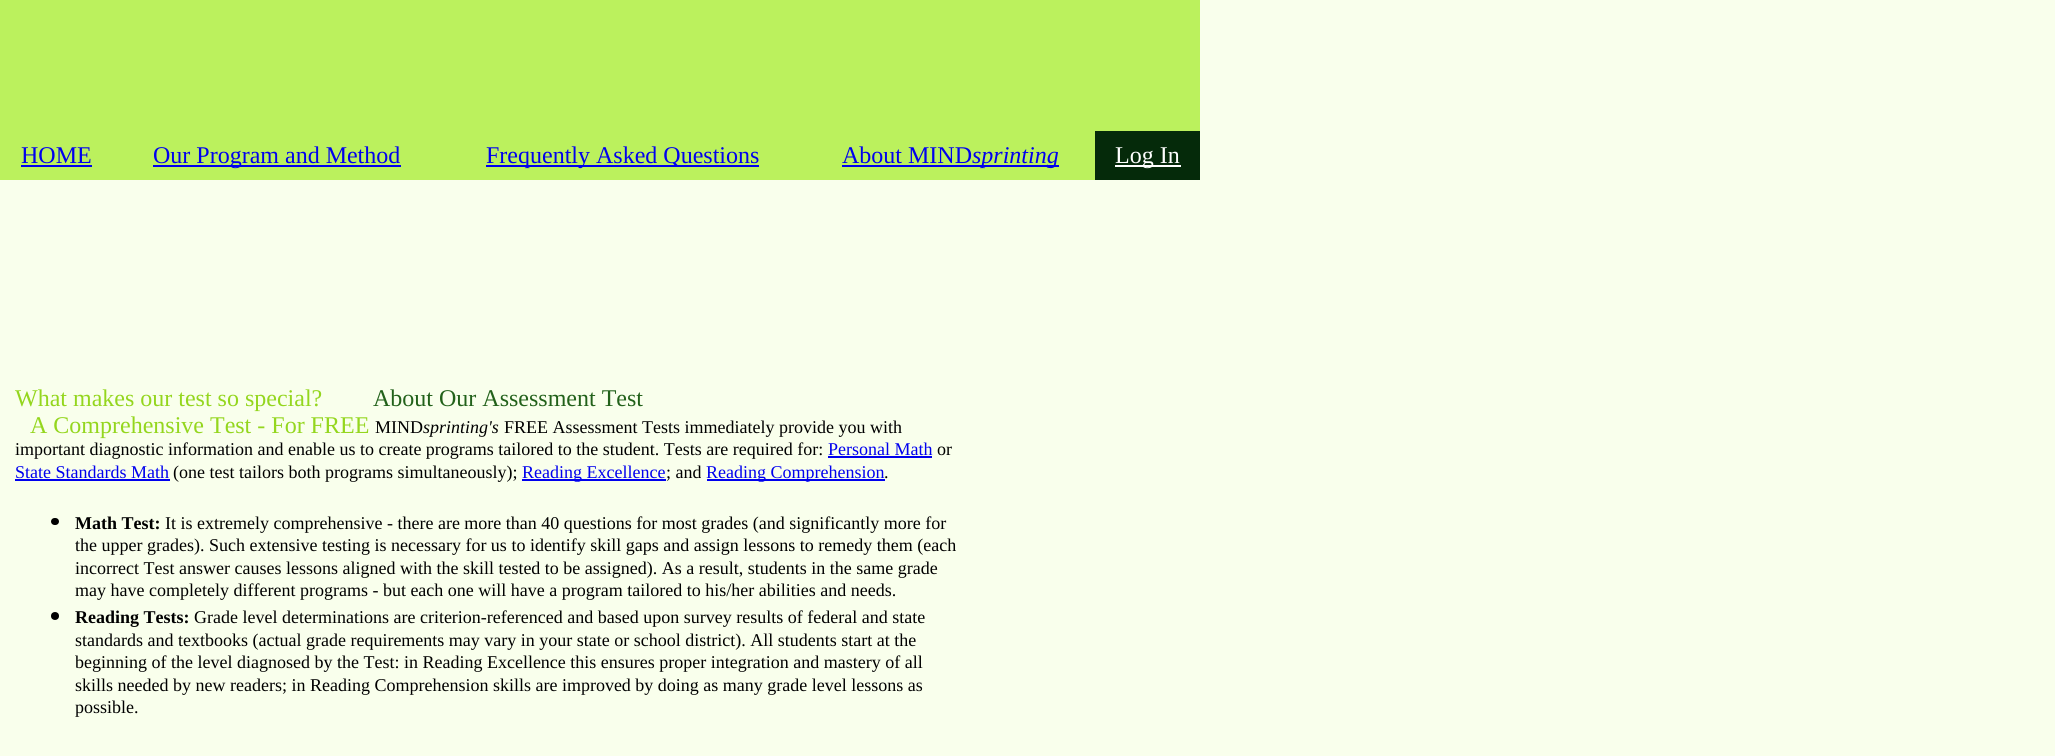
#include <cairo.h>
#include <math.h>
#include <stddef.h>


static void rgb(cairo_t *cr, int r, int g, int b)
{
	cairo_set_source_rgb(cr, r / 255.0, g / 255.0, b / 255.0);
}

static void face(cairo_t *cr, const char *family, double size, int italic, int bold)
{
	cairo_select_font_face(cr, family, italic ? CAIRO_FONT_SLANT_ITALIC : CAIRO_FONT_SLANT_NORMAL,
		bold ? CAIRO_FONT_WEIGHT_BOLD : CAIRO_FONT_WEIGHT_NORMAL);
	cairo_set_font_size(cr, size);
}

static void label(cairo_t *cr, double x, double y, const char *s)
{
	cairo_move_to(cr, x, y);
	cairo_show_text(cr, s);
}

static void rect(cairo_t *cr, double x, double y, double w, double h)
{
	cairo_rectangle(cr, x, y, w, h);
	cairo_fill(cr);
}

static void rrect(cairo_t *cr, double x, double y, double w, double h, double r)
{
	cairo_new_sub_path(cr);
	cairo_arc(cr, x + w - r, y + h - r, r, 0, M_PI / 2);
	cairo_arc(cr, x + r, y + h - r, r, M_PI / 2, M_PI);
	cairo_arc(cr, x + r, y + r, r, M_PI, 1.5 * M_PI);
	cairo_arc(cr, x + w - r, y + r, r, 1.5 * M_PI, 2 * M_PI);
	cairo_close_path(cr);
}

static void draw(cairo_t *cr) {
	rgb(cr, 249, 255, 236);
	cairo_paint(cr);
	rgb(cr, 187, 241, 93);
	rect(cr, 0, 0, 1200, 131);
	rect(cr, 0, 131, 1095, 49);
	face(cr, "Liberation Serif", 24, 0, 0);
	rgb(cr, 0, 0, 238);
	label(cr, 21, 163, "HOME");
	rect(cr, 21, 165, 71, 2);
	rect(cr, 153, 165, 248, 2);
	label(cr, 153, 163, "Our Program and Method");
	rect(cr, 486, 165, 273, 2);
	label(cr, 486, 163, "Frequently Asked Questions");
	label(cr, 842, 163, "About MIND");
	rect(cr, 842, 165, 217, 2);
	face(cr, "Liberation Serif", 24, 1, 0);
	label(cr, 972, 163, "sprinting");
	rgb(cr, 5, 42, 10);
	rect(cr, 1095, 131, 105, 49);
	rgb(cr, 255, 255, 255);
	rect(cr, 1115, 165, 66, 2);
	face(cr, "Liberation Serif", 24, 0, 0);
	label(cr, 1115, 163, "Log In");
	rgb(cr, 148, 214, 30);
	label(cr, 15, 406, "What makes our test so special?");
	rgb(cr, 34, 97, 26);
	label(cr, 373, 406, "About Our Assessment Test");
	rgb(cr, 148, 214, 30);
	label(cr, 30, 433, "A Comprehensive Test - For FREE");
	face(cr, "Liberation Serif", 18, 0, 0);
	rgb(cr, 0, 0, 0);
	label(cr, 375, 433, "MIND");
	face(cr, "Liberation Serif", 18, 1, 0);
	label(cr, 423, 433, "sprinting's");
	face(cr, "Liberation Serif", 18, 0, 0);
	label(cr, 504, 433, "FREE Assessment Tests immediately provide you with");
	label(cr, 15, 455, "important diagnostic information and enable us to create programs tailored to the student. Tests are required for:");
	rgb(cr, 0, 0, 238);
	label(cr, 828, 455, "Personal Math");
	rect(cr, 828, 456, 104, 2);
	rgb(cr, 0, 0, 0);
	label(cr, 937, 455, "or");
	rgb(cr, 0, 0, 238);
	label(cr, 15, 478, "State Standards Math");
	rect(cr, 15, 479, 155, 2);
	rgb(cr, 0, 0, 0);
	label(cr, 173, 478, "(one test tailors both programs simultaneously);");
	rgb(cr, 0, 0, 238);
	rect(cr, 522, 479, 144, 2);
	label(cr, 522, 478, "Reading Excellence");
	rgb(cr, 0, 0, 0);
	label(cr, 666, 478, "; and");
	rgb(cr, 0, 0, 238);
	rect(cr, 707, 479, 178, 2);
	label(cr, 706, 478, "Reading Comprehension");
	rgb(cr, 0, 0, 0);
	label(cr, 884, 478, ".");
	rrect(cr, 51, 518, 8, 7, 3.5);
	cairo_fill(cr);
	face(cr, "Liberation Serif", 18, 0, 1);
	label(cr, 75, 529, "Math Test:");
	face(cr, "Liberation Serif", 18, 0, 0);
	label(cr, 165, 529, "It is extremely comprehensive - there are more than 40 questions for most grades (and significantly more for");
	label(cr, 75, 551, "the upper grades). Such extensive testing is necessary for us to identify skill gaps and assign lessons to remedy them (each");
	label(cr, 75, 574, "incorrect Test answer causes lessons aligned with the skill tested to be assigned). As a result, students in the same grade");
	label(cr, 75, 596, "may have completely different programs - but each one will have a program tailored to his/her abilities and needs.");
	cairo_new_path(cr);
	cairo_arc(cr, 55, 616, 4, 0, 2 * M_PI);
	cairo_fill(cr);
	face(cr, "Liberation Serif", 18, 0, 1);
	label(cr, 75, 623, "Reading Tests:");
	face(cr, "Liberation Serif", 18, 0, 0);
	label(cr, 194, 623, "Grade level determinations are criterion-referenced and based upon survey results of federal and state");
	label(cr, 75, 646, "standards and textbooks (actual grade requirements may vary in your state or school district). All students start at the");
	label(cr, 75, 668, "beginning of the level diagnosed by the Test: in Reading Excellence this ensures proper integration and mastery of all");
	label(cr, 75, 691, "skills needed by new readers; in Reading Comprehension skills are improved by doing as many grade level lessons as");
	label(cr, 75, 713, "possible.");
}

int main(void) {
	cairo_surface_t *surface = cairo_image_surface_create(CAIRO_FORMAT_RGB24, 2055, 756);
	cairo_t *cr = cairo_create(surface);
	cairo_font_options_t *options = cairo_font_options_create();
	cairo_font_options_set_hint_metrics(options, CAIRO_HINT_METRICS_OFF);
	cairo_font_options_set_hint_style(options, CAIRO_HINT_STYLE_NONE);
	cairo_set_font_options(cr, options);
	cairo_set_miter_limit(cr, 4);
	draw(cr);
	cairo_surface_write_to_png(surface, "render.png");
	cairo_font_options_destroy(options);
	cairo_destroy(cr);
	cairo_surface_destroy(surface);
	return 0;
}
